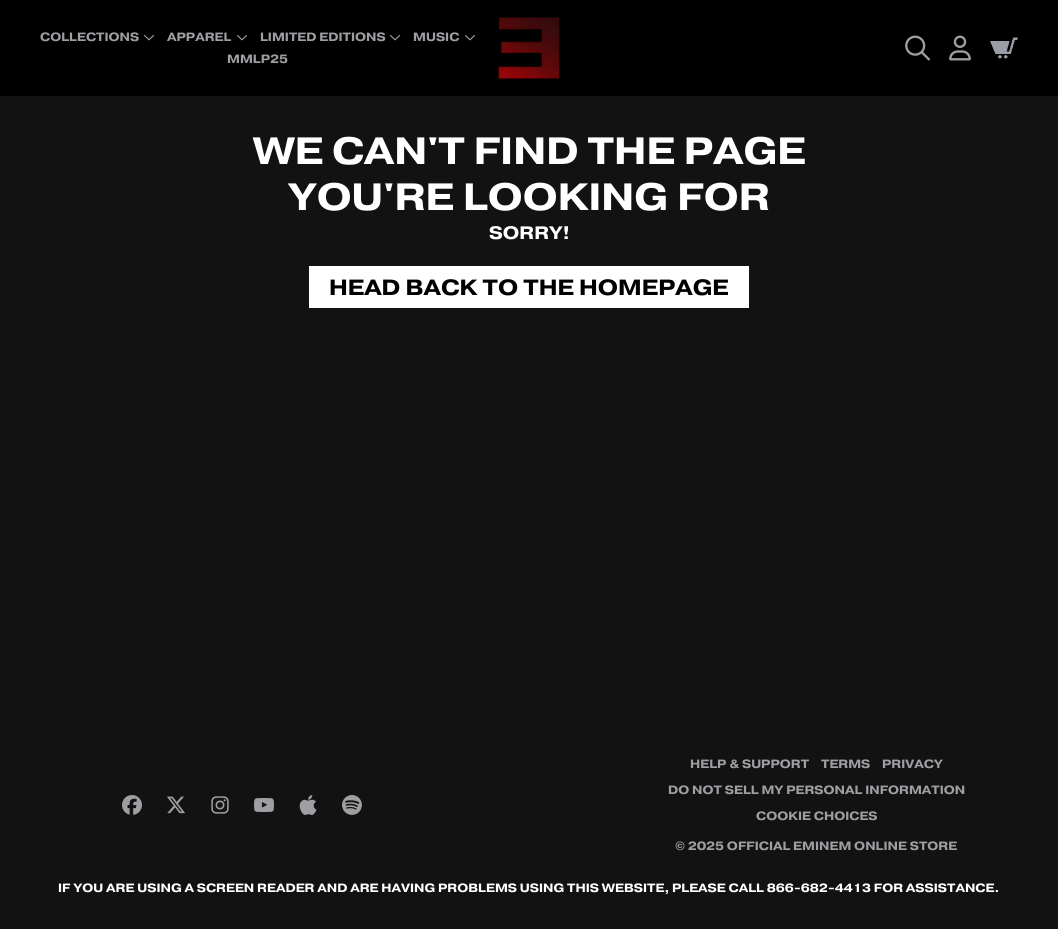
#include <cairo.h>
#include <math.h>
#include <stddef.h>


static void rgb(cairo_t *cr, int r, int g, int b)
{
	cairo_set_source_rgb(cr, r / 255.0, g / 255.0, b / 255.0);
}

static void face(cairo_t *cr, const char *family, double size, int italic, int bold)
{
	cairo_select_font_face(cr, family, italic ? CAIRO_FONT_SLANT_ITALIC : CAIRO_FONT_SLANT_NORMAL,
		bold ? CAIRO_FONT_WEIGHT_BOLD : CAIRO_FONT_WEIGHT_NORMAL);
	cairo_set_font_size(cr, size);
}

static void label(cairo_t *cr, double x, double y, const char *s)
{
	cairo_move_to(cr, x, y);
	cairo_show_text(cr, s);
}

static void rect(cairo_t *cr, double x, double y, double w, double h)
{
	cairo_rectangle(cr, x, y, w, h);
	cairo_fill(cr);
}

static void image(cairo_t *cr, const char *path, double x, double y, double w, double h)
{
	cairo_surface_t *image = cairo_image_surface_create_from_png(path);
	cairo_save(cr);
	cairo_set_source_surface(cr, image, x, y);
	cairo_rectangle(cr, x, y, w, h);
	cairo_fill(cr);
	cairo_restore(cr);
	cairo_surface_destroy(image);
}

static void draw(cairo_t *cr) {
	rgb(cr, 18, 18, 18);
	cairo_paint(cr);
	rgb(cr, 0, 0, 0);
	rect(cr, 0, 0, 1058, 96);
	face(cr, "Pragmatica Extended", 12, 0, 1);
	rgb(cr, 158, 158, 163);
	label(cr, 40, 41, "COLLECTIONS");
	image(cr, "image0.png", 144, 35, 10, 6);
	label(cr, 167, 41, "APPAREL");
	image(cr, "image0.png", 237, 35, 10, 6);
	label(cr, 260, 41, "LIMITED EDITIONS");
	image(cr, "image0.png", 390, 35, 10, 6);
	label(cr, 413, 41, "MUSIC");
	image(cr, "image0.png", 465, 35, 10, 6);
	label(cr, 227, 63, "MMLP25");
	image(cr, "image1.png", 498, 17, 62, 62);
	image(cr, "image2.png", 905, 35, 25, 26);
	image(cr, "image3.png", 949, 35, 22, 26);
	image(cr, "image4.png", 990, 37, 28, 22);
	face(cr, "Pragmatica Extended", 38, 0, 1);
	rgb(cr, 255, 255, 255);
	label(cr, 253, 164, "WE CAN'T FIND THE PAGE");
	label(cr, 288, 210, "YOU'RE LOOKING FOR");
	face(cr, "Pragmatica Extended", 18, 0, 1);
	label(cr, 489, 239, "SORRY!");
	rect(cr, 309, 266, 440, 42);
	face(cr, "Pragmatica Extended", 22, 0, 1);
	rgb(cr, 0, 0, 0);
	label(cr, 329, 295, "HEAD BACK TO THE HOMEPAGE");
	image(cr, "image5.png", 122, 795, 20, 20);
	image(cr, "image6.png", 167, 796, 18, 18);
	image(cr, "image7.png", 211, 796, 18, 18);
	image(cr, "image8.png", 254, 798, 20, 14);
	image(cr, "image9.png", 299, 795, 18, 20);
	image(cr, "image10.png", 342, 795, 20, 20);
	face(cr, "Pragmatica Extended", 12, 0, 1);
	rgb(cr, 158, 158, 163);
	label(cr, 690, 768, "HELP & SUPPORT");
	label(cr, 821, 768, "TERMS");
	label(cr, 882, 768, "PRIVACY");
	label(cr, 668, 794, "DO NOT SELL MY PERSONAL INFORMATION");
	label(cr, 756, 820, "COOKIE CHOICES");
	label(cr, 675, 850, "© 2025 OFFICIAL EMINEM ONLINE STORE");
	rgb(cr, 255, 255, 255);
	label(cr, 58, 892, "IF YOU ARE USING A SCREEN READER AND ARE HAVING PROBLEMS USING THIS WEBSITE, PLEASE CALL 866-682-4413 FOR ASSISTANCE.");
}

int main(void) {
	cairo_surface_t *surface = cairo_image_surface_create(CAIRO_FORMAT_RGB24, 1058, 929);
	cairo_t *cr = cairo_create(surface);
	cairo_font_options_t *options = cairo_font_options_create();
	cairo_font_options_set_hint_metrics(options, CAIRO_HINT_METRICS_OFF);
	cairo_font_options_set_hint_style(options, CAIRO_HINT_STYLE_NONE);
	cairo_set_font_options(cr, options);
	cairo_set_miter_limit(cr, 4);
	draw(cr);
	cairo_surface_write_to_png(surface, "render.png");
	cairo_font_options_destroy(options);
	cairo_destroy(cr);
	cairo_surface_destroy(surface);
	return 0;
}
